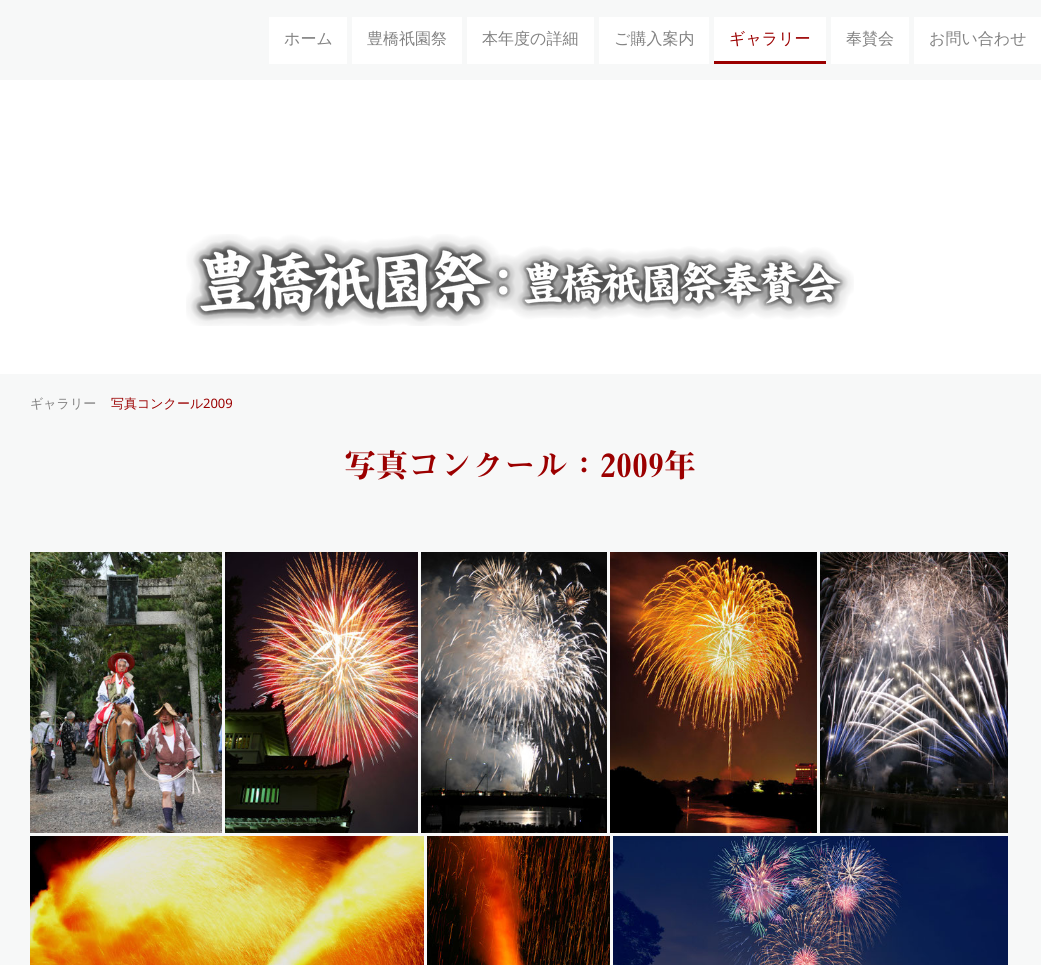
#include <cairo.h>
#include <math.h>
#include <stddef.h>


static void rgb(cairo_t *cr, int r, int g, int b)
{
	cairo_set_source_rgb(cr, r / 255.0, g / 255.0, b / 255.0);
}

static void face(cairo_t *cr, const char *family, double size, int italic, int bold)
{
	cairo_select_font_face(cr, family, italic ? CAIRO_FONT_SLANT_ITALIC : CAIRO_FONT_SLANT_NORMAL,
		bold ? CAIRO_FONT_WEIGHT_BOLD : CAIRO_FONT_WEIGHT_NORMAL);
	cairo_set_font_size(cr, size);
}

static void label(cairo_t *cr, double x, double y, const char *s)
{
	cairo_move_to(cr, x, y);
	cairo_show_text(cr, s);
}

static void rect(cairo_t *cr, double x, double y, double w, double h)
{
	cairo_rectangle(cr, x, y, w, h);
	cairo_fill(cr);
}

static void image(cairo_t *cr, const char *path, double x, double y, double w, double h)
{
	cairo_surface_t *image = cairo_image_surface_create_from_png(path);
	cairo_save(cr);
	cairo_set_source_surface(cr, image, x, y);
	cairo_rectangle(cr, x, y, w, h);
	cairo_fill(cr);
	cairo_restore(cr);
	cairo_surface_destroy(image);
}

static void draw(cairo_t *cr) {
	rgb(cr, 255, 255, 255);
	cairo_paint(cr);
	rgb(cr, 247, 248, 248);
	rect(cr, 0, 0, 1041, 80);
	rgb(cr, 255, 255, 255);
	rect(cr, 269, 17, 78, 47);
	face(cr, "WenQuanYi Zen Hei Medium", 16, 0, 0);
	rgb(cr, 130, 130, 130);
	label(cr, 284, 44, "ホーム");
	rgb(cr, 255, 255, 255);
	rect(cr, 352, 17, 110, 47);
	rgb(cr, 130, 130, 130);
	label(cr, 367, 44, "豊橋祇園祭");
	rgb(cr, 255, 255, 255);
	rect(cr, 467, 17, 127, 47);
	rgb(cr, 130, 130, 130);
	label(cr, 482, 44, "本年度の詳細");
	rgb(cr, 255, 255, 255);
	rect(cr, 599, 17, 110, 47);
	rgb(cr, 130, 130, 130);
	label(cr, 614, 44, "ご購入案内");
	rgb(cr, 255, 255, 255);
	rect(cr, 714, 17, 112, 44);
	rgb(cr, 155, 0, 0);
	rect(cr, 714, 61, 112, 3);
	label(cr, 729, 44, "ギャラリー");
	rgb(cr, 255, 255, 255);
	rect(cr, 831, 17, 78, 47);
	rgb(cr, 130, 130, 130);
	label(cr, 846, 44, "奉賛会");
	rgb(cr, 255, 255, 255);
	rect(cr, 914, 17, 127, 47);
	rgb(cr, 130, 130, 130);
	label(cr, 929, 44, "お問い合わせ");
	image(cr, "image0.png", 186, 234, 668, 92);
	rgb(cr, 247, 248, 248);
	rect(cr, 0, 374, 1041, 591);
	face(cr, "WenQuanYi Zen Hei Medium", 13, 0, 0);
	rgb(cr, 130, 130, 130);
	label(cr, 30, 408, "ギャラリー");
	rgb(cr, 155, 0, 0);
	label(cr, 111, 408, "写真コンクール");
	face(cr, "Noto Sans", 13, 0, 0);
	label(cr, 203, 408, "2009");
	face(cr, "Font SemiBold", 32, 0, 0);
	label(cr, 344, 477, "写真コンクール：2009年");
	image(cr, "image1.png", 30, 552, 192, 281);
	image(cr, "image2.png", 225, 552, 193, 281);
	image(cr, "image3.png", 421, 552, 186, 281);
	image(cr, "image4.png", 610, 552, 207, 281);
	image(cr, "image5.png", 820, 552, 188, 281);
	image(cr, "image6.png", 30, 836, 394, 129);
	image(cr, "image7.png", 427, 836, 183, 129);
	image(cr, "image8.png", 613, 836, 395, 129);
}

int main(void) {
	cairo_surface_t *surface = cairo_image_surface_create(CAIRO_FORMAT_RGB24, 1041, 965);
	cairo_t *cr = cairo_create(surface);
	cairo_font_options_t *options = cairo_font_options_create();
	cairo_font_options_set_hint_metrics(options, CAIRO_HINT_METRICS_OFF);
	cairo_font_options_set_hint_style(options, CAIRO_HINT_STYLE_NONE);
	cairo_set_font_options(cr, options);
	cairo_set_miter_limit(cr, 4);
	draw(cr);
	cairo_surface_write_to_png(surface, "render.png");
	cairo_font_options_destroy(options);
	cairo_destroy(cr);
	cairo_surface_destroy(surface);
	return 0;
}
